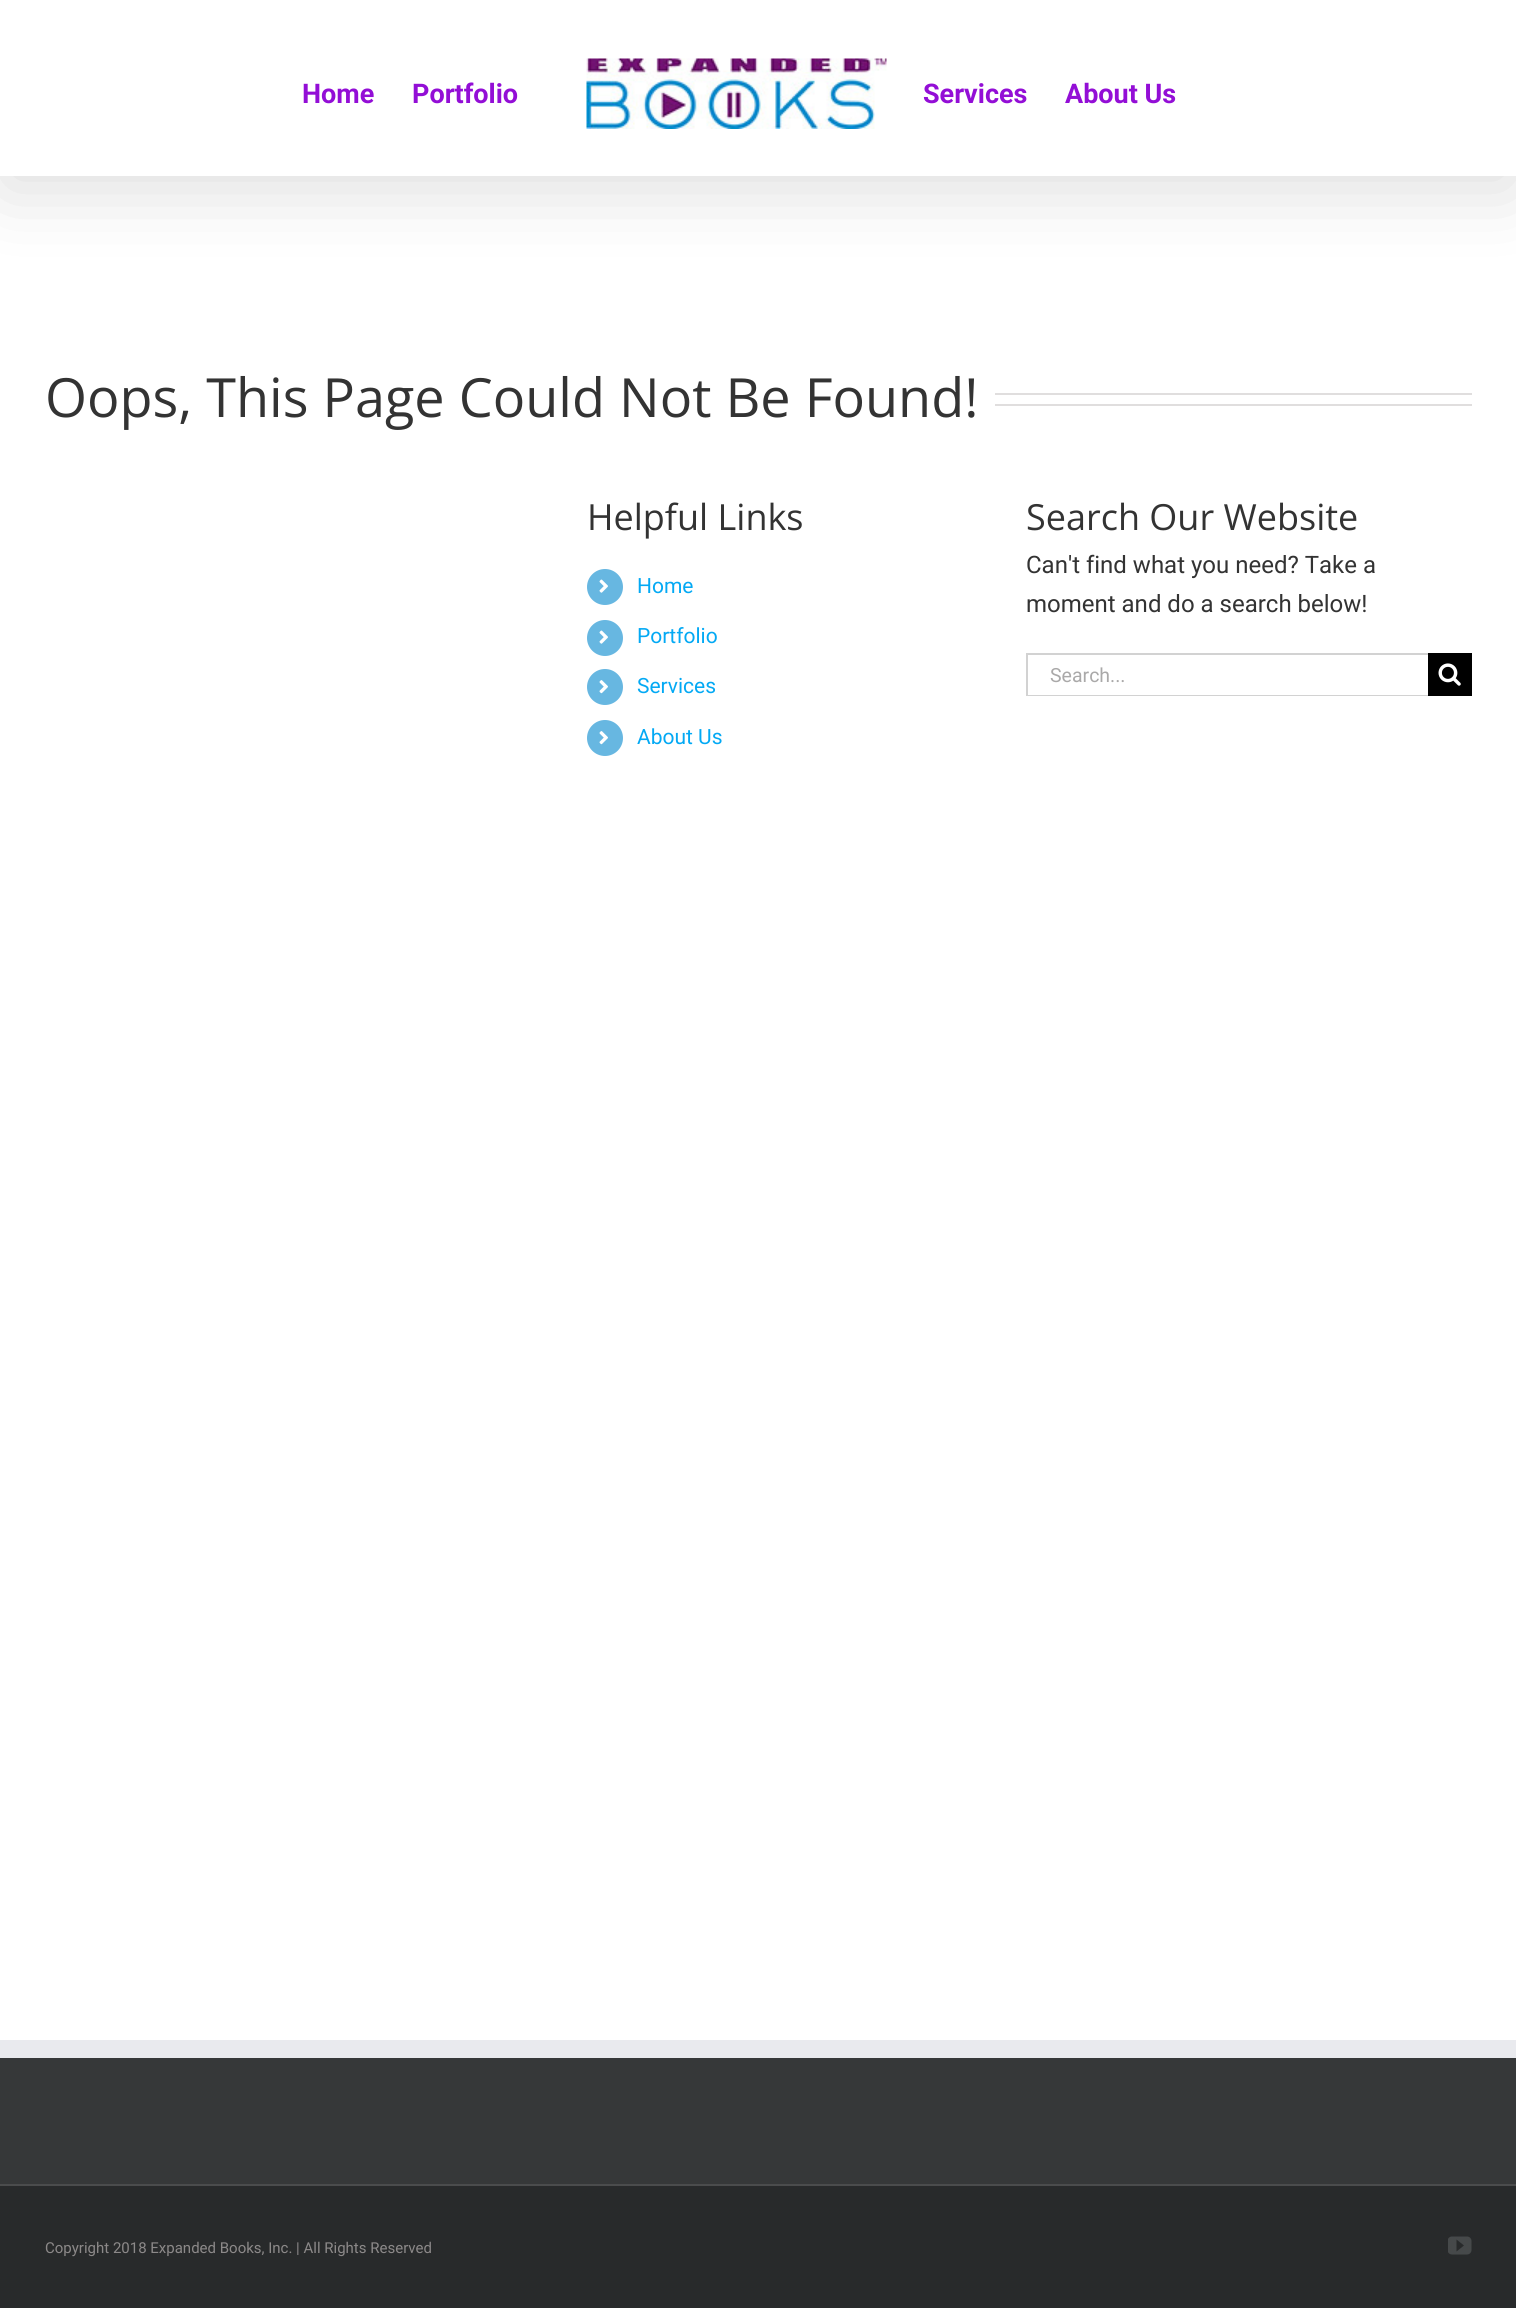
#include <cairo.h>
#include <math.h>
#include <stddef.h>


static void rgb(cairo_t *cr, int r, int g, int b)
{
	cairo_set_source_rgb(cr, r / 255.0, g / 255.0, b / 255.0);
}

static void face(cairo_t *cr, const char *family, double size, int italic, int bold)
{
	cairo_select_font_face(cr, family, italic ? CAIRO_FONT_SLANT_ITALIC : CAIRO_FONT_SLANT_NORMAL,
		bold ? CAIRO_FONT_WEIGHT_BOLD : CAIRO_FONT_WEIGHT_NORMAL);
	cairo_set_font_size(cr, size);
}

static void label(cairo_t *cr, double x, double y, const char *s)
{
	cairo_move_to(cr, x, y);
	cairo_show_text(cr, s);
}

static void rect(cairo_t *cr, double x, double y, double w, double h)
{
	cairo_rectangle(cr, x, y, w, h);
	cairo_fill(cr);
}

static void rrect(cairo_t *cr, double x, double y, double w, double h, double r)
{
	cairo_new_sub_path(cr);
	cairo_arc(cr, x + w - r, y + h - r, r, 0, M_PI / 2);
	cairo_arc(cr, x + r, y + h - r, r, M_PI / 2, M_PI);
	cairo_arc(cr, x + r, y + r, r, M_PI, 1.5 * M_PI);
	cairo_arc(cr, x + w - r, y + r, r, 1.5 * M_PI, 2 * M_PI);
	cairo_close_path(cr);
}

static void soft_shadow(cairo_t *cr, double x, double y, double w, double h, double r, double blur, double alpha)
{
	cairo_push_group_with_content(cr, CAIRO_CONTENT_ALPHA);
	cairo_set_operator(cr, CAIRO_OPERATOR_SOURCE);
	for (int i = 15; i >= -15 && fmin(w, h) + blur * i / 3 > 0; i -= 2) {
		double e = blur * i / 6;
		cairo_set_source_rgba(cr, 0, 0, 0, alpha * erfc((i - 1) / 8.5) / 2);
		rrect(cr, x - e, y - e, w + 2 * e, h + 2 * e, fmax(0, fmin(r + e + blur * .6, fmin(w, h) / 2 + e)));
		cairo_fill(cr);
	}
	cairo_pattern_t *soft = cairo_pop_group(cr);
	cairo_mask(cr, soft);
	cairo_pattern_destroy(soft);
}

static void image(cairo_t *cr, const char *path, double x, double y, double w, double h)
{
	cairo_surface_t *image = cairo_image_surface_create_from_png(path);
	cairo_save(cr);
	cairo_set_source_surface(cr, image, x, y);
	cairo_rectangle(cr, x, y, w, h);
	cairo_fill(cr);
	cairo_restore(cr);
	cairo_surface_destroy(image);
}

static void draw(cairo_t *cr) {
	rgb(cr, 255, 255, 255);
	cairo_paint(cr);
	rgb(cr, 0, 0, 0);
	soft_shadow(cr, 3, 18, 1511, 170, 0, 37.5, 0.14);
	rgb(cr, 255, 255, 255);
	rect(cr, 0, 0, 1516, 176);
	face(cr, "Roboto", 27, 0, 1);
	rgb(cr, 147, 14, 214);
	label(cr, 302, 103, "Home");
	label(cr, 412, 103, "Portfolio");
	image(cr, "image0.png", 586, 58, 301, 71);
	label(cr, 923, 103, "Services");
	label(cr, 1065, 103, "About Us");
	face(cr, "Open Sans", 54, 0, 0);
	rgb(cr, 51, 51, 51);
	label(cr, 45, 417, "Oops, This Page Could Not Be Found!");
	rgb(cr, 224, 222, 222);
	rect(cr, 995, 393, 477, 2);
	rect(cr, 995, 404, 477, 2);
	face(cr, "Open Sans", 36, 0, 0);
	rgb(cr, 51, 51, 51);
	label(cr, 587, 530, "Helpful Links");
	rgb(cr, 103, 183, 225);
	cairo_new_path(cr);
	cairo_arc(cr, 605, 587, 18, 0, 2 * M_PI);
	cairo_fill(cr);
	image(cr, "image1.png", 599, 579, 9, 14);
	face(cr, "Roboto", 21, 0, 0);
	rgb(cr, 3, 169, 244);
	label(cr, 637, 593, "Home");
	rgb(cr, 103, 183, 225);
	cairo_new_path(cr);
	cairo_arc(cr, 605, 638, 18, 0, 2 * M_PI);
	cairo_fill(cr);
	image(cr, "image1.png", 599, 630, 9, 14);
	rgb(cr, 3, 169, 244);
	label(cr, 637, 643, "Portfolio");
	rgb(cr, 103, 183, 225);
	cairo_new_path(cr);
	cairo_arc(cr, 605, 687, 18, 0, 2 * M_PI);
	cairo_fill(cr);
	image(cr, "image2.png", 599, 680, 9, 14);
	rgb(cr, 3, 169, 244);
	label(cr, 637, 693, "Services");
	rgb(cr, 103, 183, 225);
	cairo_new_path(cr);
	cairo_arc(cr, 605, 738, 18, 0, 2 * M_PI);
	cairo_fill(cr);
	image(cr, "image2.png", 599, 731, 9, 14);
	rgb(cr, 3, 169, 244);
	label(cr, 637, 744, "About Us");
	face(cr, "Open Sans", 36, 0, 0);
	rgb(cr, 51, 51, 51);
	label(cr, 1026, 530, "Search Our Website");
	face(cr, "Roboto", 24, 0, 0);
	label(cr, 1026, 573, "Can't find what you need? Take a");
	label(cr, 1026, 612, "moment and do a search below!");
	rgb(cr, 210, 210, 210);
	rect(cr, 1026, 653, 402, 2);
	rect(cr, 1026, 695, 402, 1);
	rect(cr, 1026, 653, 2, 43);
	face(cr, "Roboto", 19.5, 0, 0);
	rgb(cr, 170, 169, 169);
	label(cr, 1050, 682, "Search...");
	rgb(cr, 0, 0, 0);
	rect(cr, 1428, 653, 44, 43);
	image(cr, "image3.png", 1438, 663, 23, 23);
	rgb(cr, 54, 56, 57);
	rect(cr, 0, 2058, 1516, 126);
	rgb(cr, 233, 234, 238);
	rect(cr, 0, 2040, 1516, 18);
	rgb(cr, 40, 42, 43);
	rect(cr, 0, 2186, 1516, 122);
	rgb(cr, 75, 76, 77);
	rect(cr, 0, 2184, 1516, 2);
	face(cr, "Roboto", 15, 0, 0);
	rgb(cr, 140, 137, 137);
	label(cr, 45, 2253, "Copyright 2018 Expanded Books, Inc. | All Rights Reserved");
	image(cr, "image4.png", 1448, 2236, 24, 19);
}

int main(void) {
	cairo_surface_t *surface = cairo_image_surface_create(CAIRO_FORMAT_RGB24, 1516, 2308);
	cairo_t *cr = cairo_create(surface);
	cairo_font_options_t *options = cairo_font_options_create();
	cairo_font_options_set_hint_metrics(options, CAIRO_HINT_METRICS_OFF);
	cairo_font_options_set_hint_style(options, CAIRO_HINT_STYLE_NONE);
	cairo_set_font_options(cr, options);
	cairo_set_miter_limit(cr, 4);
	draw(cr);
	cairo_surface_write_to_png(surface, "render.png");
	cairo_font_options_destroy(options);
	cairo_destroy(cr);
	cairo_surface_destroy(surface);
	return 0;
}
